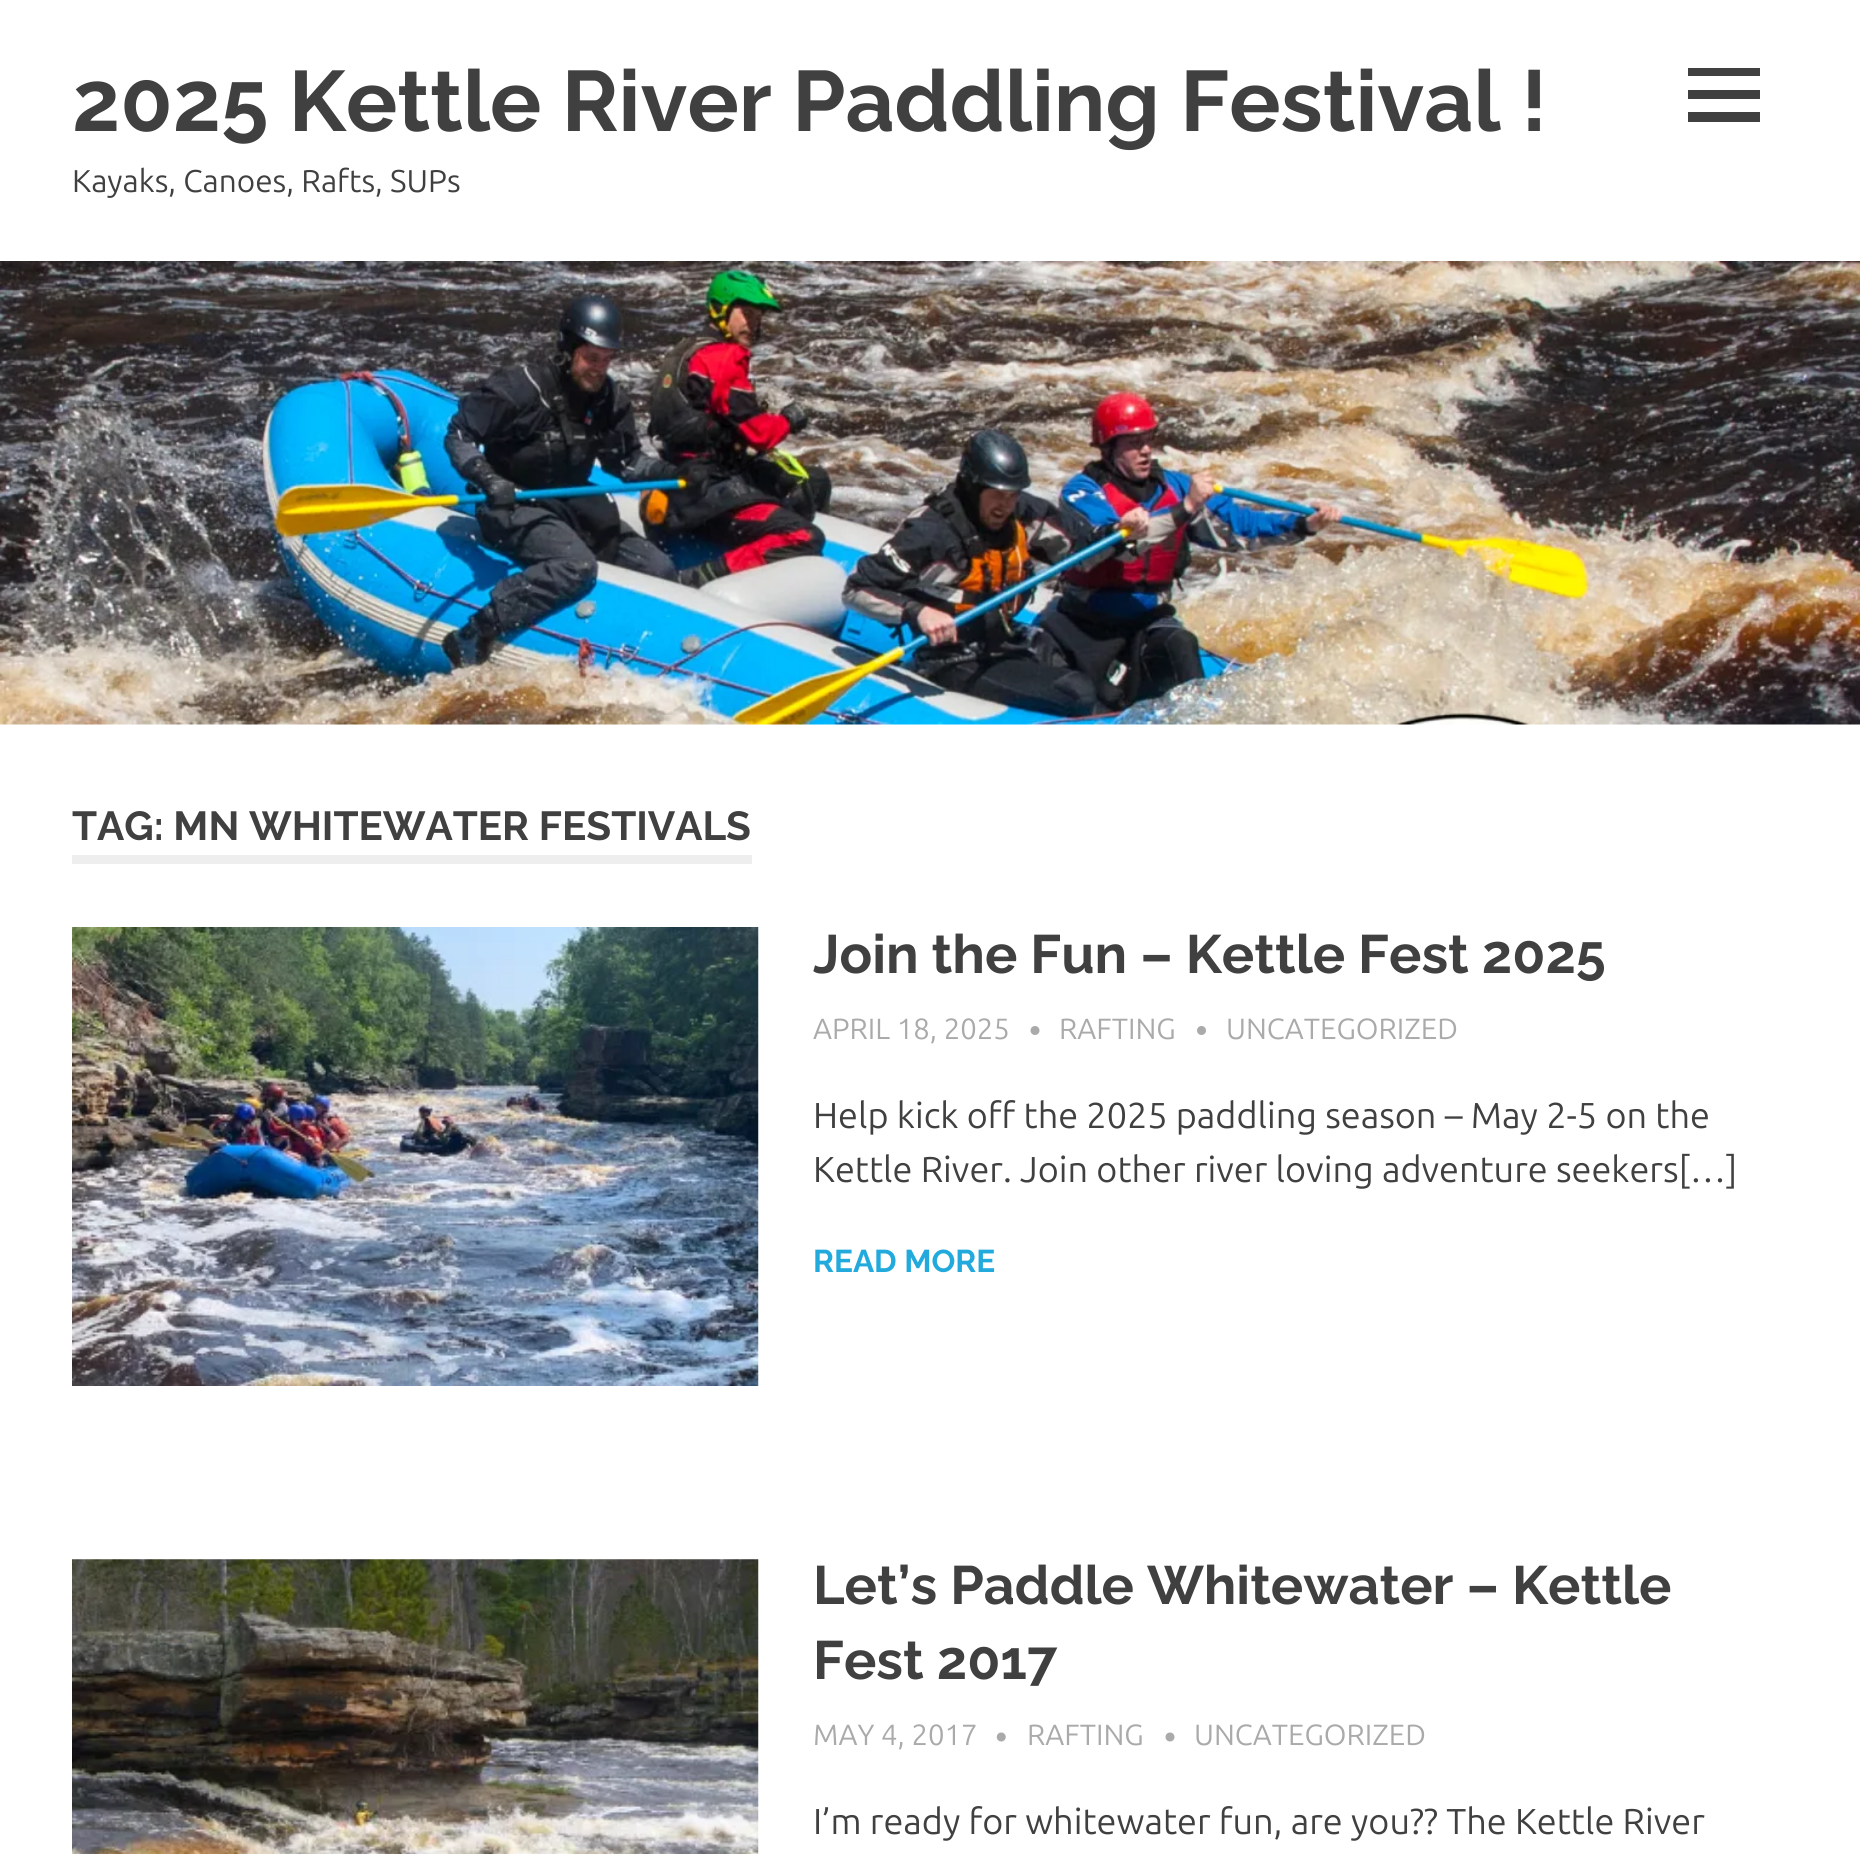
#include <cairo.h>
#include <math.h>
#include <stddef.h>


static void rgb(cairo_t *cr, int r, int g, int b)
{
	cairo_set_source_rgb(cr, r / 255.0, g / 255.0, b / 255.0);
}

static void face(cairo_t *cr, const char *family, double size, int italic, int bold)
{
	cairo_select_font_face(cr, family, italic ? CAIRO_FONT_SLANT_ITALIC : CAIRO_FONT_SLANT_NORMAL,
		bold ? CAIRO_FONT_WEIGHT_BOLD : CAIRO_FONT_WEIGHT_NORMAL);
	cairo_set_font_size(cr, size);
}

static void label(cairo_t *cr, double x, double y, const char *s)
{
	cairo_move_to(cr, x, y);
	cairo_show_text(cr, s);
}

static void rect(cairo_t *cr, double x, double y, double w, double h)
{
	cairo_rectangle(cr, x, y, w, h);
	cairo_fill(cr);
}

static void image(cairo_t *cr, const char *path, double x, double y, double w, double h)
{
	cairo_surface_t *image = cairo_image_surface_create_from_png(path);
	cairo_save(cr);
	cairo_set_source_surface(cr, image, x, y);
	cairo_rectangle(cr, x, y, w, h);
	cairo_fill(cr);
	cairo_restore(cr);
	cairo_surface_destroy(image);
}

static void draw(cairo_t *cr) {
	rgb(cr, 255, 255, 255);
	cairo_paint(cr);
	face(cr, "Raleway", 85.5, 0, 1);
	rgb(cr, 64, 64, 64);
	label(cr, 72, 131, "2025 Kettle River Paddling Festival !");
	face(cr, "Ubuntu", 31.5, 0, 0);
	label(cr, 72, 192, "Kayaks, Canoes, Rafts, SUPs");
	cairo_new_path(cr);
	cairo_move_to(cr, 1688, 122);
	cairo_line_to(cr, 1688, 112);
	cairo_line_to(cr, 1760, 112);
	cairo_line_to(cr, 1760, 122);
	cairo_close_path(cr);
	cairo_move_to(cr, 1688, 68);
	cairo_line_to(cr, 1760, 68);
	cairo_line_to(cr, 1760, 76);
	cairo_line_to(cr, 1688, 76);
	cairo_close_path(cr);
	cairo_move_to(cr, 1688, 99);
	cairo_line_to(cr, 1688, 90);
	cairo_line_to(cr, 1760, 90);
	cairo_line_to(cr, 1760, 99);
	cairo_close_path(cr);
	cairo_fill(cr);
	image(cr, "image0.png", 0, 261, 1860, 464);
	rgb(cr, 238, 238, 238);
	rect(cr, 72, 855, 680, 9);
	face(cr, "Raleway", 40.5, 0, 1);
	rgb(cr, 64, 64, 64);
	label(cr, 72, 840, "TAG: MN WHITEWATER FESTIVALS");
	image(cr, "image1.png", 72, 927, 687, 459);
	face(cr, "Raleway", 54, 0, 1);
	label(cr, 813, 973, "Join the Fun – Kettle Fest 2025");
	face(cr, "Ubuntu", 29.25, 0, 0);
	rgb(cr, 170, 170, 170);
	label(cr, 813, 1039, "APRIL 18, 2025");
	image(cr, "image2.png", 1030, 1026, 10, 9);
	label(cr, 1059, 1039, "RAFTING");
	image(cr, "image3.png", 1197, 1026, 9, 9);
	label(cr, 1226, 1039, "UNCATEGORIZED");
	face(cr, "Ubuntu", 36, 0, 0);
	rgb(cr, 64, 64, 64);
	label(cr, 813, 1128, "Help kick off the 2025 paddling season – May 2-5 on the");
	label(cr, 813, 1182, "Kettle River. Join other river loving adventure seekers[…]");
	face(cr, "Raleway", 31.5, 0, 1);
	rgb(cr, 34, 170, 221);
	label(cr, 813, 1272, "READ MORE");
	image(cr, "image4.png", 72, 1559, 687, 295);
	face(cr, "Raleway", 54, 0, 1);
	rgb(cr, 64, 64, 64);
	label(cr, 813, 1604, "Let’s Paddle Whitewater – Kettle");
	label(cr, 813, 1679, "Fest 2017");
	face(cr, "Ubuntu", 29.25, 0, 0);
	rgb(cr, 170, 170, 170);
	label(cr, 813, 1745, "MAY 4, 2017");
	image(cr, "image5.png", 996, 1732, 10, 10);
	label(cr, 1027, 1745, "RAFTING");
	image(cr, "image6.png", 1165, 1732, 10, 10);
	label(cr, 1194, 1745, "UNCATEGORIZED");
	face(cr, "Ubuntu", 36, 0, 0);
	rgb(cr, 64, 64, 64);
	label(cr, 813, 1834, "I’m ready for whitewater fun, are you?\077 The Kettle River");
}

int main(void) {
	cairo_surface_t *surface = cairo_image_surface_create(CAIRO_FORMAT_RGB24, 1860, 1854);
	cairo_t *cr = cairo_create(surface);
	cairo_font_options_t *options = cairo_font_options_create();
	cairo_font_options_set_hint_metrics(options, CAIRO_HINT_METRICS_OFF);
	cairo_font_options_set_hint_style(options, CAIRO_HINT_STYLE_NONE);
	cairo_set_font_options(cr, options);
	cairo_set_miter_limit(cr, 4);
	draw(cr);
	cairo_surface_write_to_png(surface, "render.png");
	cairo_font_options_destroy(options);
	cairo_destroy(cr);
	cairo_surface_destroy(surface);
	return 0;
}
